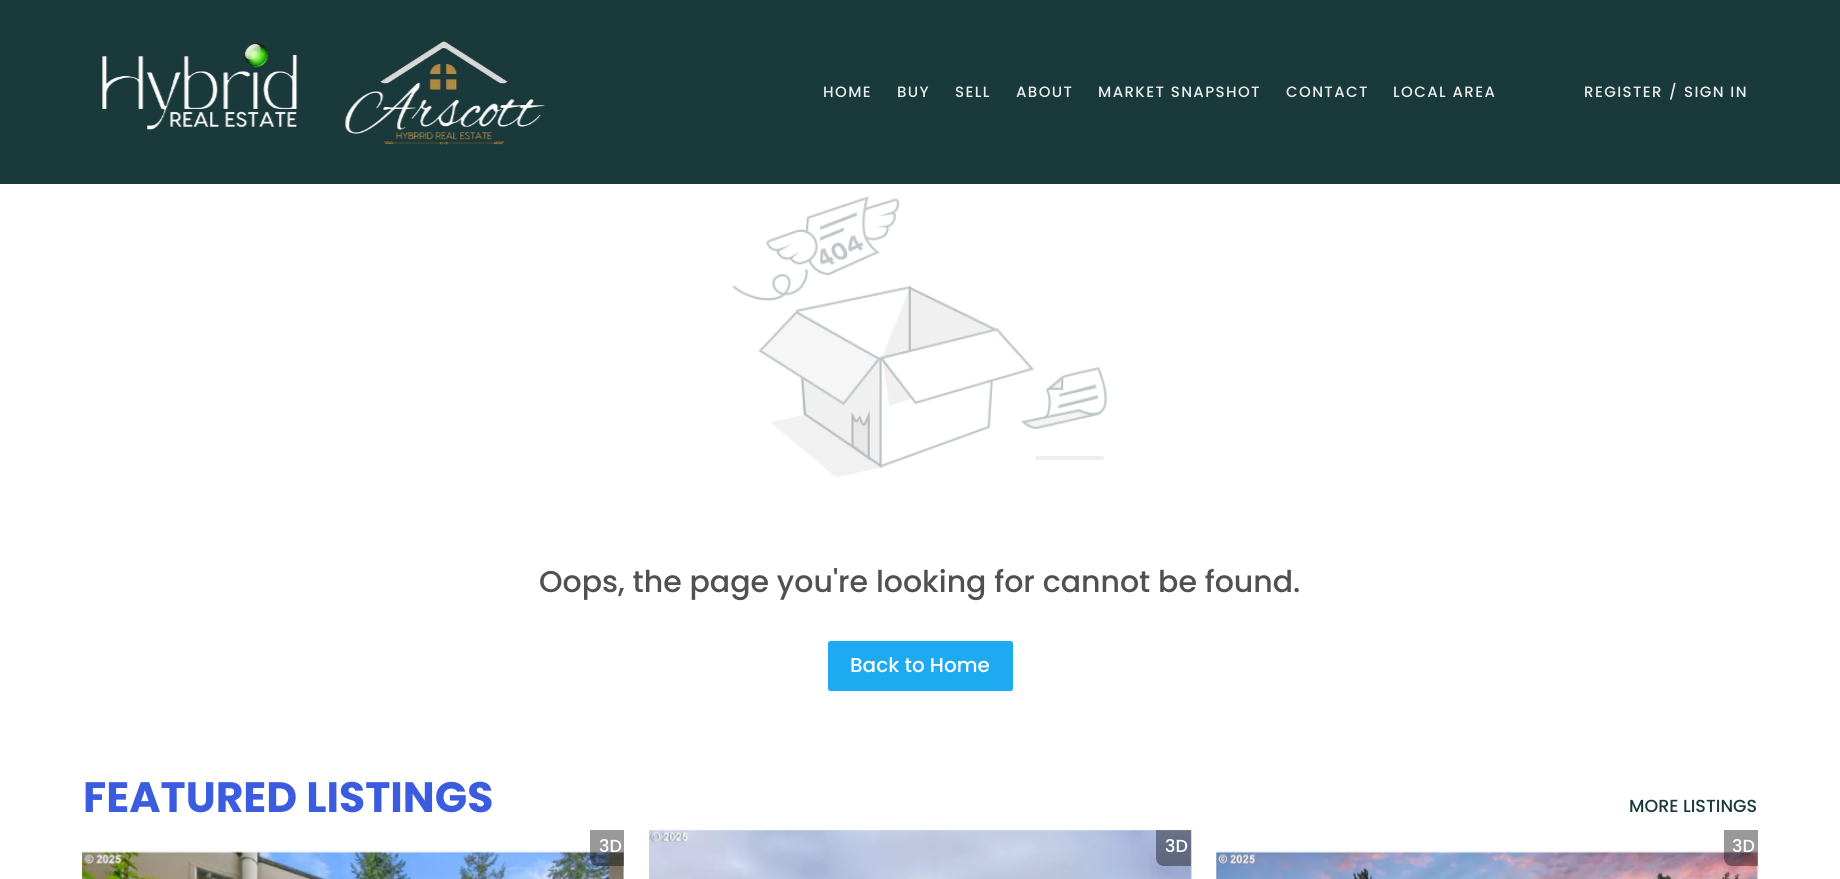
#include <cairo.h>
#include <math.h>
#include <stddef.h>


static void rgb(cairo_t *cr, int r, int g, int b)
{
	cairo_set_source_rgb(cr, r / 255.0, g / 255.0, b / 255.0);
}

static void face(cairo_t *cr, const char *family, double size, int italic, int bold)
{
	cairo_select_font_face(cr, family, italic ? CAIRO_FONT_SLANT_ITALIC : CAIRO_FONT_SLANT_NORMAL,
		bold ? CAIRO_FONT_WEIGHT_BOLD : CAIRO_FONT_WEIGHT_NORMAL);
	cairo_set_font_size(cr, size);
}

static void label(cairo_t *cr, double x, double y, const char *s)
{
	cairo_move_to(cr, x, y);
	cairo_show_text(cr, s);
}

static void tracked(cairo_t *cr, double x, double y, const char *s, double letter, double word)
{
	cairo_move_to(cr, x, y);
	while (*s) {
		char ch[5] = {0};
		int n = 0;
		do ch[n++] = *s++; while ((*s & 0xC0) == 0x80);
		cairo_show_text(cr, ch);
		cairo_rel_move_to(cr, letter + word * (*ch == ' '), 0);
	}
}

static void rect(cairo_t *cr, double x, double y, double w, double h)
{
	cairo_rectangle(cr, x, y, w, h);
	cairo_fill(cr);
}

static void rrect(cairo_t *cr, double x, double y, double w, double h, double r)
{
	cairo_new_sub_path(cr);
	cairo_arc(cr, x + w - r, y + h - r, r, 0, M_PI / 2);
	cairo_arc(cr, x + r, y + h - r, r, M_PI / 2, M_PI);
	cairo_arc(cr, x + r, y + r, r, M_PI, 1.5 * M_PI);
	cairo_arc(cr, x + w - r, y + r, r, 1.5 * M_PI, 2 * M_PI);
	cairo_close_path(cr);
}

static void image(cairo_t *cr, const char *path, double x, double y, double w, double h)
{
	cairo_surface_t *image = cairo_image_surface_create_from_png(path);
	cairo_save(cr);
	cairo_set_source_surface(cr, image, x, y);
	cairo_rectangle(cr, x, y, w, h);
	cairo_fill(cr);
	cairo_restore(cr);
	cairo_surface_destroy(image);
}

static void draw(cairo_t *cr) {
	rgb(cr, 255, 255, 255);
	cairo_paint(cr);
	rgb(cr, 25, 57, 58);
	rect(cr, 0, 0, 1840, 184);
	image(cr, "image0.png", 102, 43, 196, 87);
	image(cr, "image1.png", 345, 41, 200, 104);
	face(cr, "Poppins Medium", 15, 0, 0);
	rgb(cr, 236, 236, 236);
	tracked(cr, 823, 97, "HOME", 1.4, 0);
	tracked(cr, 897, 97, "BUY", 1.4, 0);
	tracked(cr, 955, 97, "SELL", 1.4, 0);
	tracked(cr, 1016, 97, "ABOUT", 1.4, 0);
	tracked(cr, 1098, 97, "MARKET SNAPSHOT", 1.4, 0);
	tracked(cr, 1286, 97, "CONTACT", 1.4, 0);
	tracked(cr, 1393, 97, "LOCAL AREA", 1.4, 0);
	tracked(cr, 1584, 97, "REGISTER", 1.4, 0);
	tracked(cr, 1669, 97, "/", 1.4, 0);
	tracked(cr, 1684, 97, "SIGN IN", 1.4, 0);
	image(cr, "image2.png", 732, 196, 376, 281);
	face(cr, "Poppins Medium", 30, 0, 0);
	rgb(cr, 80, 80, 80);
	label(cr, 539, 592, "Oops, the page you're looking for cannot be found.");
	rgb(cr, 29, 170, 240);
	rrect(cr, 828, 641, 185, 50, 2.5);
	cairo_fill(cr);
	face(cr, "Poppins Medium", 20, 0, 0);
	rgb(cr, 255, 255, 255);
	label(cr, 850, 672, "Back to Home");
	face(cr, "Poppins", 42.5, 0, 1);
	rgb(cr, 59, 92, 222);
	label(cr, 83, 812, "FEATURED LISTINGS");
	face(cr, "Poppins Medium", 17.5, 0, 0);
	rgb(cr, 25, 57, 58);
	label(cr, 1629, 812, "MORE LISTINGS");
	image(cr, "image3.png", 82, 849, 542, 30);
	cairo_set_source_rgba(cr, 0, 0, 0, 0.4);
	cairo_new_path(cr);
	cairo_move_to(cr, 590, 830);
	cairo_line_to(cr, 624, 830);
	cairo_line_to(cr, 624, 866);
	cairo_line_to(cr, 598, 866);
	cairo_curve_to(cr, 593.5, 866, 590, 862.5, 590, 858);
	cairo_close_path(cr);
	cairo_fill(cr);
	rgb(cr, 255, 255, 255);
	label(cr, 599, 852, "3D");
	image(cr, "image4.png", 649, 830, 543, 49);
	cairo_set_source_rgba(cr, 0, 0, 0, 0.4);
	cairo_new_path(cr);
	cairo_move_to(cr, 1156, 830);
	cairo_line_to(cr, 1191, 830);
	cairo_line_to(cr, 1191, 866);
	cairo_line_to(cr, 1164, 866);
	cairo_curve_to(cr, 1159.5, 866, 1156, 862.5, 1156, 858);
	cairo_close_path(cr);
	cairo_fill(cr);
	rgb(cr, 255, 255, 255);
	label(cr, 1165, 852, "3D");
	image(cr, "image5.png", 1216, 851, 542, 28);
	cairo_set_source_rgba(cr, 0, 0, 0, 0.4);
	cairo_new_path(cr);
	cairo_move_to(cr, 1724, 830);
	cairo_line_to(cr, 1758, 830);
	cairo_line_to(cr, 1758, 866);
	cairo_line_to(cr, 1732, 866);
	cairo_curve_to(cr, 1727.5, 866, 1724, 862.5, 1724, 858);
	cairo_close_path(cr);
	cairo_fill(cr);
	rgb(cr, 255, 255, 255);
	label(cr, 1732, 852, "3D");
}

int main(void) {
	cairo_surface_t *surface = cairo_image_surface_create(CAIRO_FORMAT_RGB24, 1840, 879);
	cairo_t *cr = cairo_create(surface);
	cairo_font_options_t *options = cairo_font_options_create();
	cairo_font_options_set_hint_metrics(options, CAIRO_HINT_METRICS_OFF);
	cairo_font_options_set_hint_style(options, CAIRO_HINT_STYLE_NONE);
	cairo_set_font_options(cr, options);
	cairo_set_miter_limit(cr, 4);
	draw(cr);
	cairo_surface_write_to_png(surface, "render.png");
	cairo_font_options_destroy(options);
	cairo_destroy(cr);
	cairo_surface_destroy(surface);
	return 0;
}
